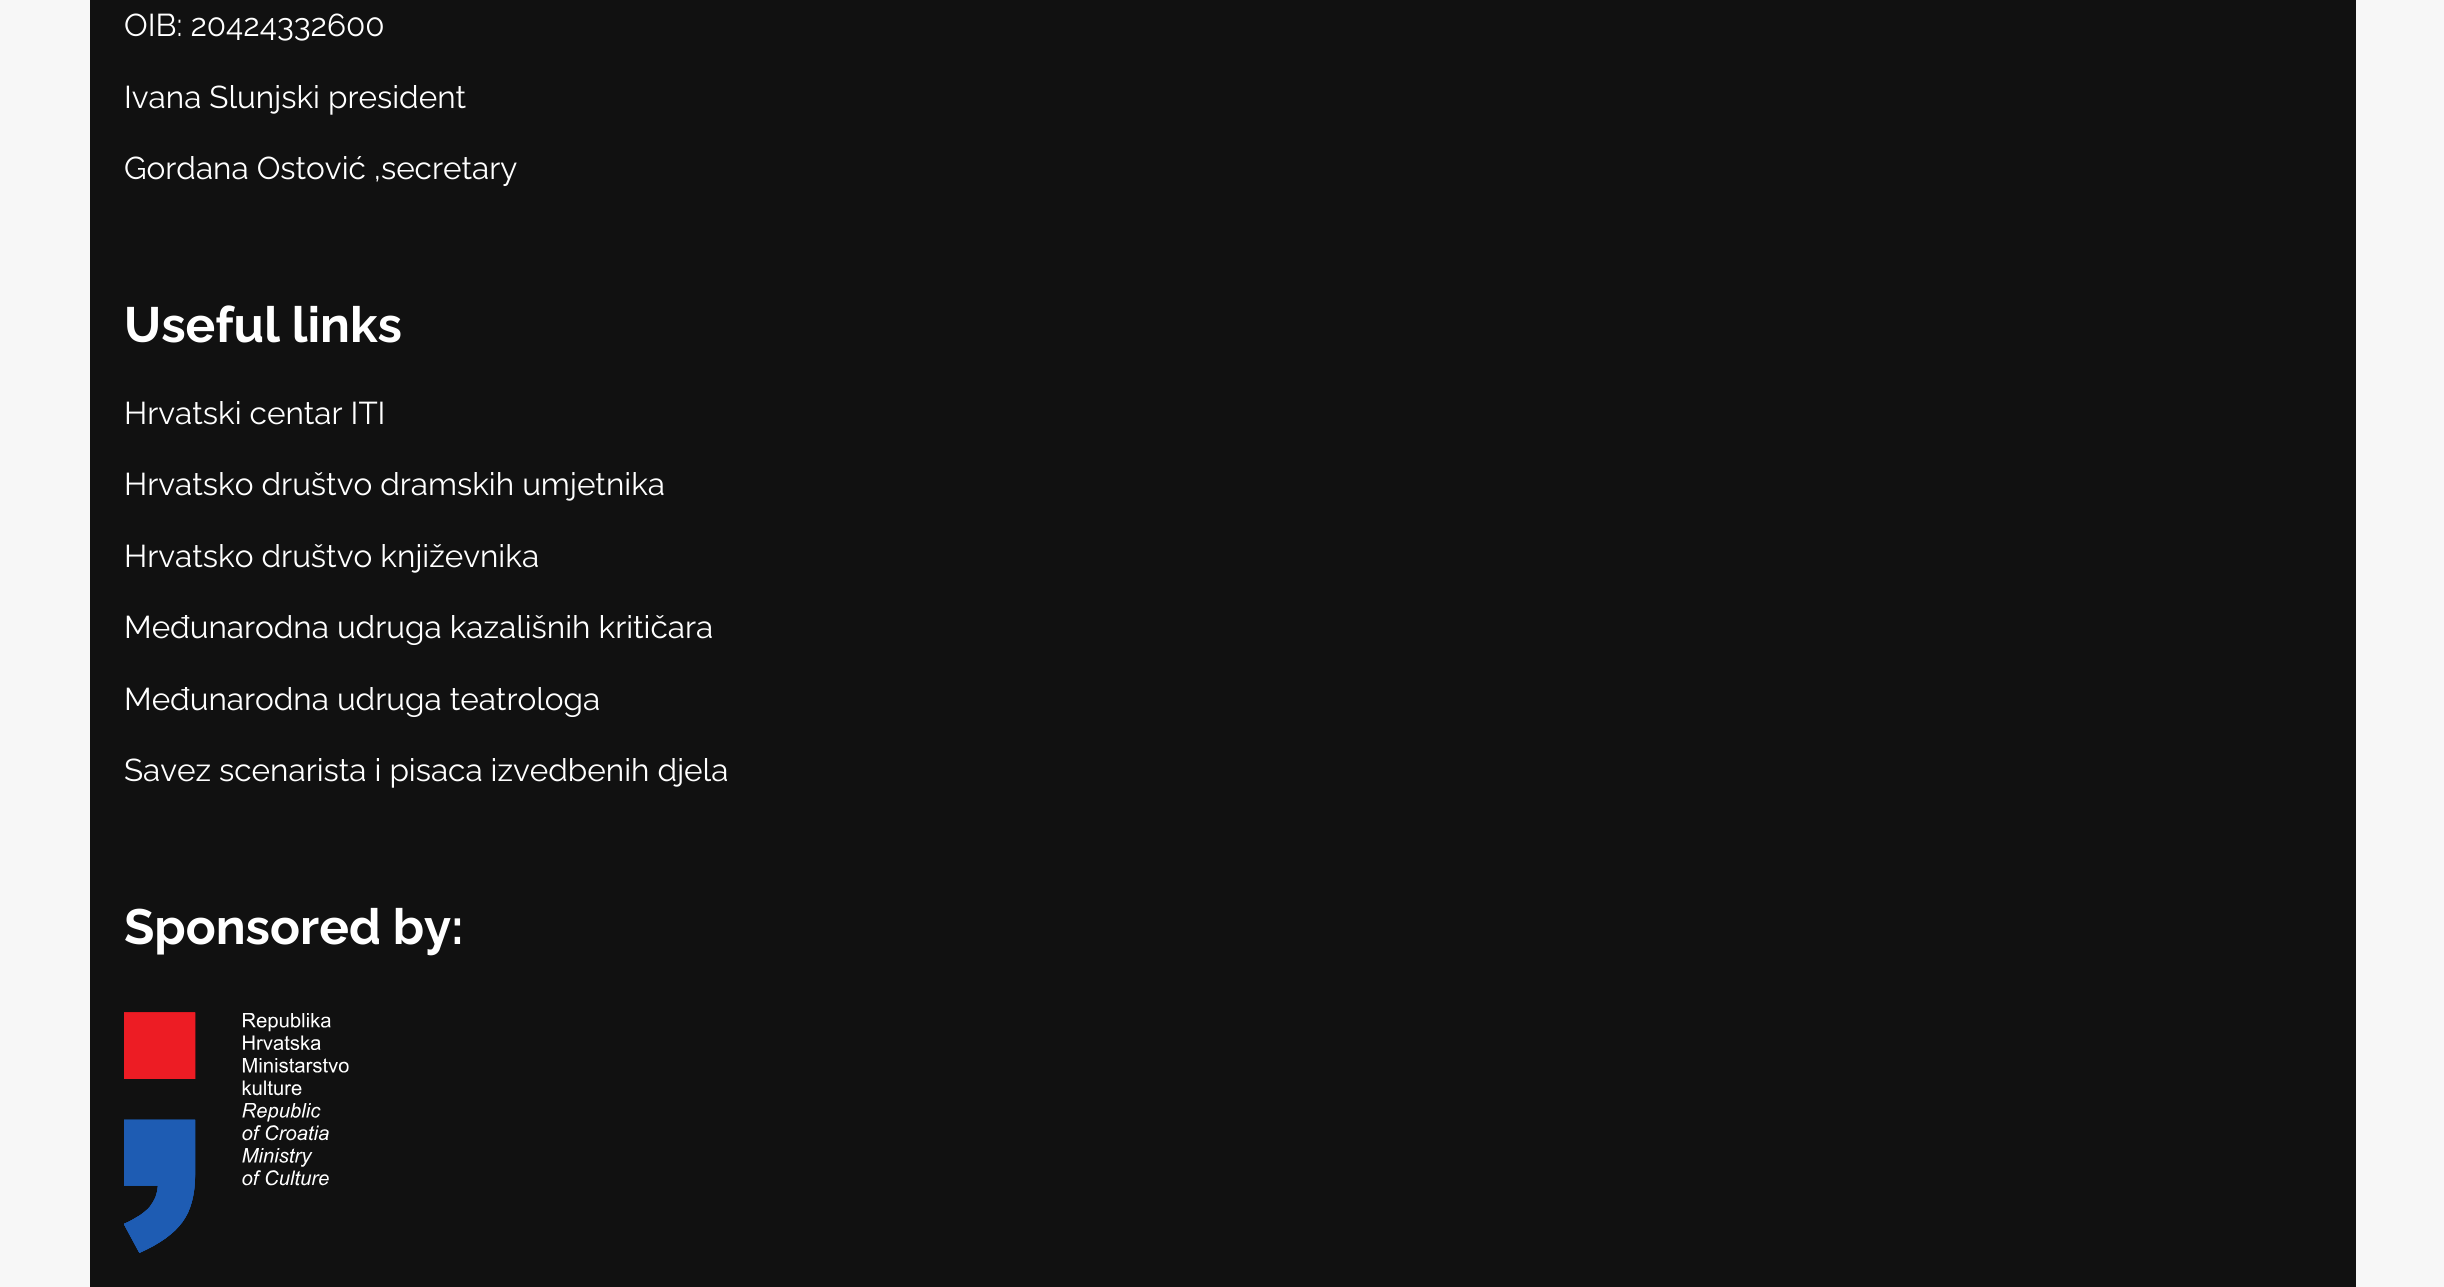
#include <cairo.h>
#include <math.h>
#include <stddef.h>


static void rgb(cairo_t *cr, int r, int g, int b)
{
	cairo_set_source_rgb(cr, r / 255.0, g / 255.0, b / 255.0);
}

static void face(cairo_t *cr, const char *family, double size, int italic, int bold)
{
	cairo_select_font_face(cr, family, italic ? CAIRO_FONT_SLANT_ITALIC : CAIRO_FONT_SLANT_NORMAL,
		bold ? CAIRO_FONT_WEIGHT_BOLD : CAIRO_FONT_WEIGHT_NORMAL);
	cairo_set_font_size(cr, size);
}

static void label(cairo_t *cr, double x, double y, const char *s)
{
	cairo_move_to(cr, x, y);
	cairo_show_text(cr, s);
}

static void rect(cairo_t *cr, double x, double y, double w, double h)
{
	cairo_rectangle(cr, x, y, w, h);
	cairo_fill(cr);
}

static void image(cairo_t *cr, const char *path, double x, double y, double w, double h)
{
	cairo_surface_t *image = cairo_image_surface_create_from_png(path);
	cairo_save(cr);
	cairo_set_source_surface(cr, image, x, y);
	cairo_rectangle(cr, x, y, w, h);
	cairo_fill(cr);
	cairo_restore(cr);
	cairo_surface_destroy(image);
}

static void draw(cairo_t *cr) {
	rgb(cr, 247, 247, 247);
	cairo_paint(cr);
	rgb(cr, 17, 17, 17);
	rect(cr, 90, 0, 2266, 1287);
	face(cr, "Raleway", 31.5, 0, 0);
	rgb(cr, 255, 255, 255);
	label(cr, 124, 36, "OIB: 20424332600");
	label(cr, 124, 108, "Ivana Slunjski president");
	label(cr, 124, 179, "Gordana Ostović ,secretary");
	face(cr, "Raleway", 49.5, 0, 1);
	label(cr, 124, 342, "Useful links");
	face(cr, "Raleway", 31.5, 0, 0);
	label(cr, 124, 424, "Hrvatski centar ITI");
	label(cr, 124, 495, "Hrvatsko društvo dramskih umjetnika");
	label(cr, 124, 567, "Hrvatsko društvo književnika");
	label(cr, 124, 638, "Međunarodna udruga kazališnih kritičara");
	label(cr, 124, 710, "Međunarodna udruga teatrologa");
	label(cr, 124, 781, "Savez scenarista i pisaca izvedbenih djela");
	face(cr, "Raleway", 49.5, 0, 1);
	label(cr, 124, 944, "Sponsored by:");
	image(cr, "image0.png", 124, 1012, 225, 241);
}

int main(void) {
	cairo_surface_t *surface = cairo_image_surface_create(CAIRO_FORMAT_RGB24, 2444, 1287);
	cairo_t *cr = cairo_create(surface);
	cairo_font_options_t *options = cairo_font_options_create();
	cairo_font_options_set_hint_metrics(options, CAIRO_HINT_METRICS_OFF);
	cairo_font_options_set_hint_style(options, CAIRO_HINT_STYLE_NONE);
	cairo_set_font_options(cr, options);
	cairo_set_miter_limit(cr, 4);
	draw(cr);
	cairo_surface_write_to_png(surface, "render.png");
	cairo_font_options_destroy(options);
	cairo_destroy(cr);
	cairo_surface_destroy(surface);
	return 0;
}
